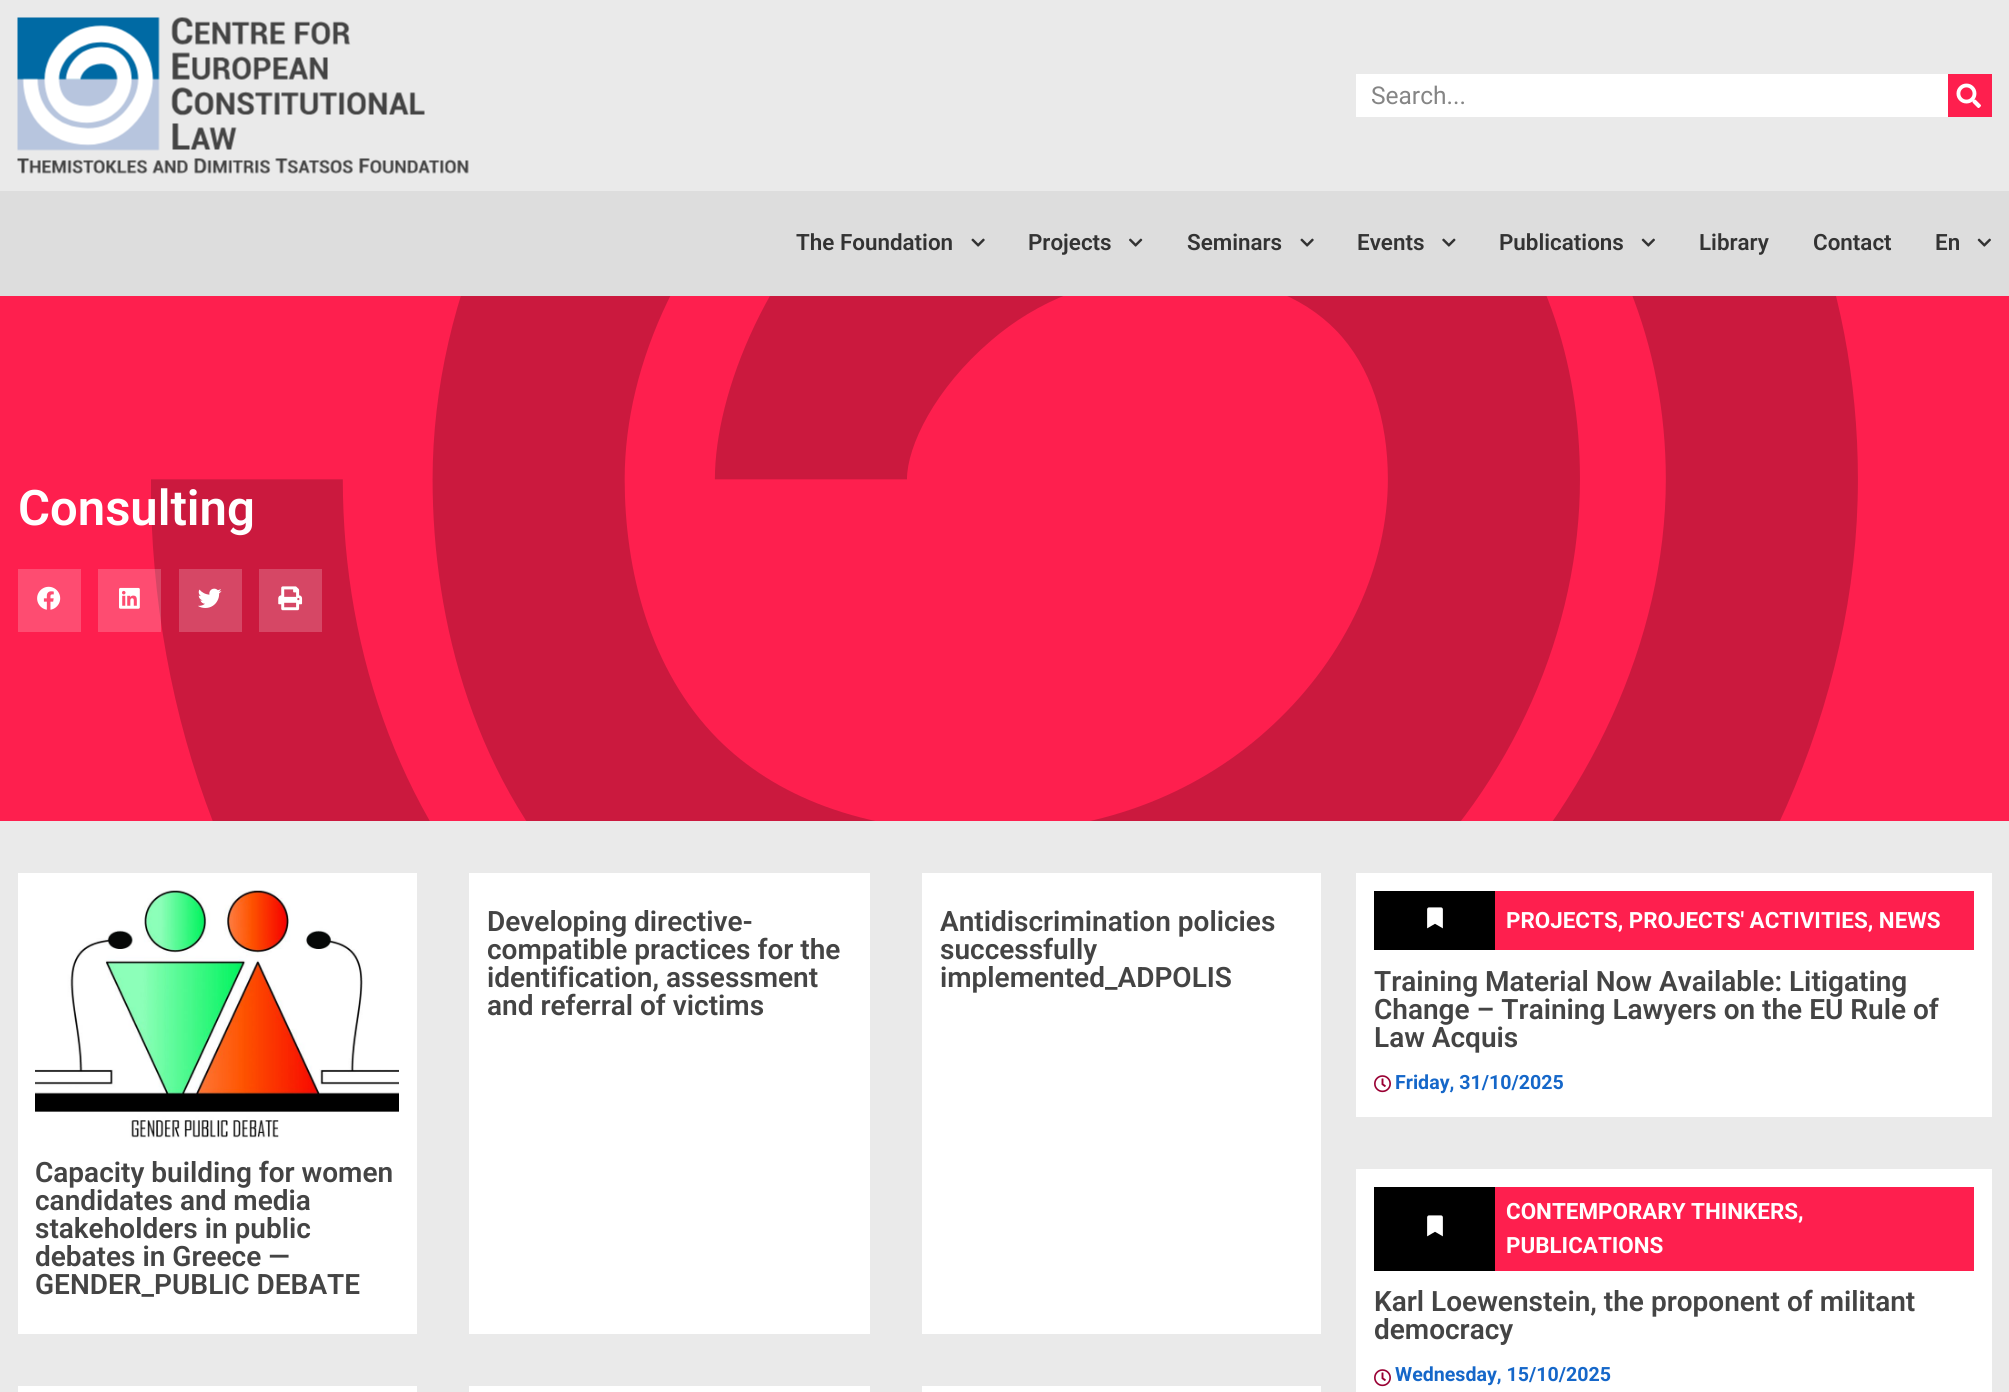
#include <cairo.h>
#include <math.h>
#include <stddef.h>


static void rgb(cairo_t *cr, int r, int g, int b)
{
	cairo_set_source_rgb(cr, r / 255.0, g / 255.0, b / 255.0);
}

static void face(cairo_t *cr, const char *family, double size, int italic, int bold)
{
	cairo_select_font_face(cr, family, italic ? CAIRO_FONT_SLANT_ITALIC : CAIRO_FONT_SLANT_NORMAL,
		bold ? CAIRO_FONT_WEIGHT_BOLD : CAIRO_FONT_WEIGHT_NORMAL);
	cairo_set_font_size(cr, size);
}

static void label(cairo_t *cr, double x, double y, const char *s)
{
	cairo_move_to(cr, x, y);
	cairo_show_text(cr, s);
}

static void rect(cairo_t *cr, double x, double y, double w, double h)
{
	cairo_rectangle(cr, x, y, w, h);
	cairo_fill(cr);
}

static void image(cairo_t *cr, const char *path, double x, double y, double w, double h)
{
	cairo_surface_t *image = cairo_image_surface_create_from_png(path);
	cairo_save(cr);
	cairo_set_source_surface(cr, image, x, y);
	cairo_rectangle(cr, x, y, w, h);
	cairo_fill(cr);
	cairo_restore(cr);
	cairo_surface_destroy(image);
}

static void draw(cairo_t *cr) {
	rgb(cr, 254, 31, 78);
	cairo_paint(cr);
	rgb(cr, 234, 234, 234);
	rect(cr, 0, 0, 2009, 191);
	image(cr, "image0.png", 17, 17, 452, 157);
	rgb(cr, 255, 255, 255);
	rect(cr, 1356, 74, 592, 43);
	face(cr, "Roboto", 24.5, 0, 0);
	rgb(cr, 133, 133, 133);
	label(cr, 1371, 104, "Search...");
	rgb(cr, 254, 31, 78);
	rect(cr, 1948, 74, 44, 43);
	image(cr, "image1.png", 1956, 83, 25, 25);
	rgb(cr, 221, 221, 221);
	rect(cr, 0, 191, 2009, 105);
	face(cr, "Roboto SemiBold", 22.4, 0, 0);
	rgb(cr, 51, 51, 51);
	label(cr, 796, 250, "The Foundation");
	image(cr, "image2.png", 971, 238, 14, 9);
	label(cr, 1028, 250, "Projects");
	image(cr, "image3.png", 1129, 238, 14, 9);
	label(cr, 1187, 250, "Seminars");
	image(cr, "image2.png", 1300, 238, 14, 9);
	label(cr, 1357, 250, "Events");
	image(cr, "image4.png", 1442, 238, 14, 9);
	label(cr, 1499, 250, "Publications");
	image(cr, "image5.png", 1641, 238, 14, 9);
	label(cr, 1699, 250, "Library");
	label(cr, 1813, 250, "Contact");
	label(cr, 1935, 250, "En");
	image(cr, "image5.png", 1977, 238, 14, 9);
	image(cr, "image10.png", 151, 296, 1707, 525);
	face(cr, "Roboto SemiBold", 49, 0, 0);
	rgb(cr, 255, 255, 255);
	label(cr, 18, 525, "Consulting");
	rgb(cr, 254, 76, 113);
	rect(cr, 18, 569, 63, 63);
	image(cr, "image6.png", 37, 586, 24, 24);
	cairo_set_source_rgba(cr, 1, 1, 1, 0.2);
	rect(cr, 98, 569, 63, 63);
	image(cr, "image7.png", 119, 587, 21, 22);
	rgb(cr, 214, 71, 101);
	rect(cr, 179, 569, 63, 63);
	image(cr, "image8.png", 198, 588, 24, 20);
	rect(cr, 259, 569, 63, 63);
	image(cr, "image9.png", 278, 586, 25, 25);
	rgb(cr, 234, 234, 234);
	rect(cr, 0, 821, 2009, 571);
	rgb(cr, 255, 255, 255);
	rect(cr, 469, 873, 401, 461);
	face(cr, "Roboto SemiBold", 28, 0, 0);
	rgb(cr, 68, 68, 68);
	label(cr, 487, 931, "Developing directive-");
	label(cr, 487, 959, "compatible practices for the");
	label(cr, 487, 987, "identification, assessment");
	label(cr, 487, 1015, "and referral of victims");
	rgb(cr, 255, 255, 255);
	rect(cr, 922, 873, 399, 461);
	rgb(cr, 68, 68, 68);
	label(cr, 940, 931, "Antidiscrimination policies");
	label(cr, 940, 959, "successfully");
	label(cr, 940, 987, "implemented_ADPOLIS");
	rgb(cr, 255, 255, 255);
	rect(cr, 18, 873, 399, 461);
	image(cr, "image11.png", 35, 890, 364, 248);
	rgb(cr, 68, 68, 68);
	label(cr, 35, 1182, "Capacity building for women");
	label(cr, 35, 1210, "candidates and media");
	label(cr, 35, 1238, "stakeholders in public");
	label(cr, 35, 1266, "debates in Greece —");
	label(cr, 35, 1294, "GENDER_PUBLIC DEBATE");
	rgb(cr, 255, 255, 255);
	rect(cr, 18, 1386, 399, 6);
	rect(cr, 469, 1386, 401, 6);
	rect(cr, 922, 1386, 399, 6);
	rect(cr, 1356, 873, 636, 244);
	rgb(cr, 0, 0, 0);
	rect(cr, 1374, 891, 121, 59);
	image(cr, "image12.png", 1427, 907, 16, 22);
	rgb(cr, 254, 31, 78);
	rect(cr, 1495, 891, 479, 59);
	face(cr, "Roboto", 22.4, 0, 1);
	rgb(cr, 255, 255, 255);
	label(cr, 1506, 928, "PROJECTS, PROJECTS' ACTIVITIES, NEWS");
	face(cr, "Roboto SemiBold", 28, 0, 0);
	rgb(cr, 68, 68, 68);
	label(cr, 1374, 991, "Training Material Now Available: Litigating");
	label(cr, 1374, 1019, "Change – Training Lawyers on the EU Rule of");
	label(cr, 1374, 1047, "Law Acquis");
	image(cr, "image13.png", 1374, 1075, 17, 18);
	face(cr, "Roboto", 19.6, 0, 1);
	rgb(cr, 21, 103, 201);
	label(cr, 1395, 1089, "Friday, 31/10/2025");
	rgb(cr, 255, 255, 255);
	rect(cr, 1356, 1169, 636, 223);
	rgb(cr, 0, 0, 0);
	rect(cr, 1374, 1187, 121, 84);
	image(cr, "image12.png", 1427, 1215, 16, 22);
	rgb(cr, 254, 31, 78);
	rect(cr, 1495, 1187, 479, 84);
	face(cr, "Roboto", 22.4, 0, 1);
	rgb(cr, 255, 255, 255);
	label(cr, 1506, 1219, "CONTEMPORARY THINKERS,");
	label(cr, 1506, 1253, "PUBLICATIONS");
	face(cr, "Roboto SemiBold", 28, 0, 0);
	rgb(cr, 68, 68, 68);
	label(cr, 1374, 1311, "Karl Loewenstein, the proponent of militant");
	label(cr, 1374, 1339, "democracy");
	image(cr, "image13.png", 1374, 1369, 17, 18);
	face(cr, "Roboto", 19.6, 0, 1);
	rgb(cr, 21, 103, 201);
	label(cr, 1395, 1381, "Wednesday, 15/10/2025");
}

int main(void) {
	cairo_surface_t *surface = cairo_image_surface_create(CAIRO_FORMAT_RGB24, 2009, 1392);
	cairo_t *cr = cairo_create(surface);
	cairo_font_options_t *options = cairo_font_options_create();
	cairo_font_options_set_hint_metrics(options, CAIRO_HINT_METRICS_OFF);
	cairo_font_options_set_hint_style(options, CAIRO_HINT_STYLE_NONE);
	cairo_set_font_options(cr, options);
	cairo_set_miter_limit(cr, 4);
	draw(cr);
	cairo_surface_write_to_png(surface, "render.png");
	cairo_font_options_destroy(options);
	cairo_destroy(cr);
	cairo_surface_destroy(surface);
	return 0;
}
